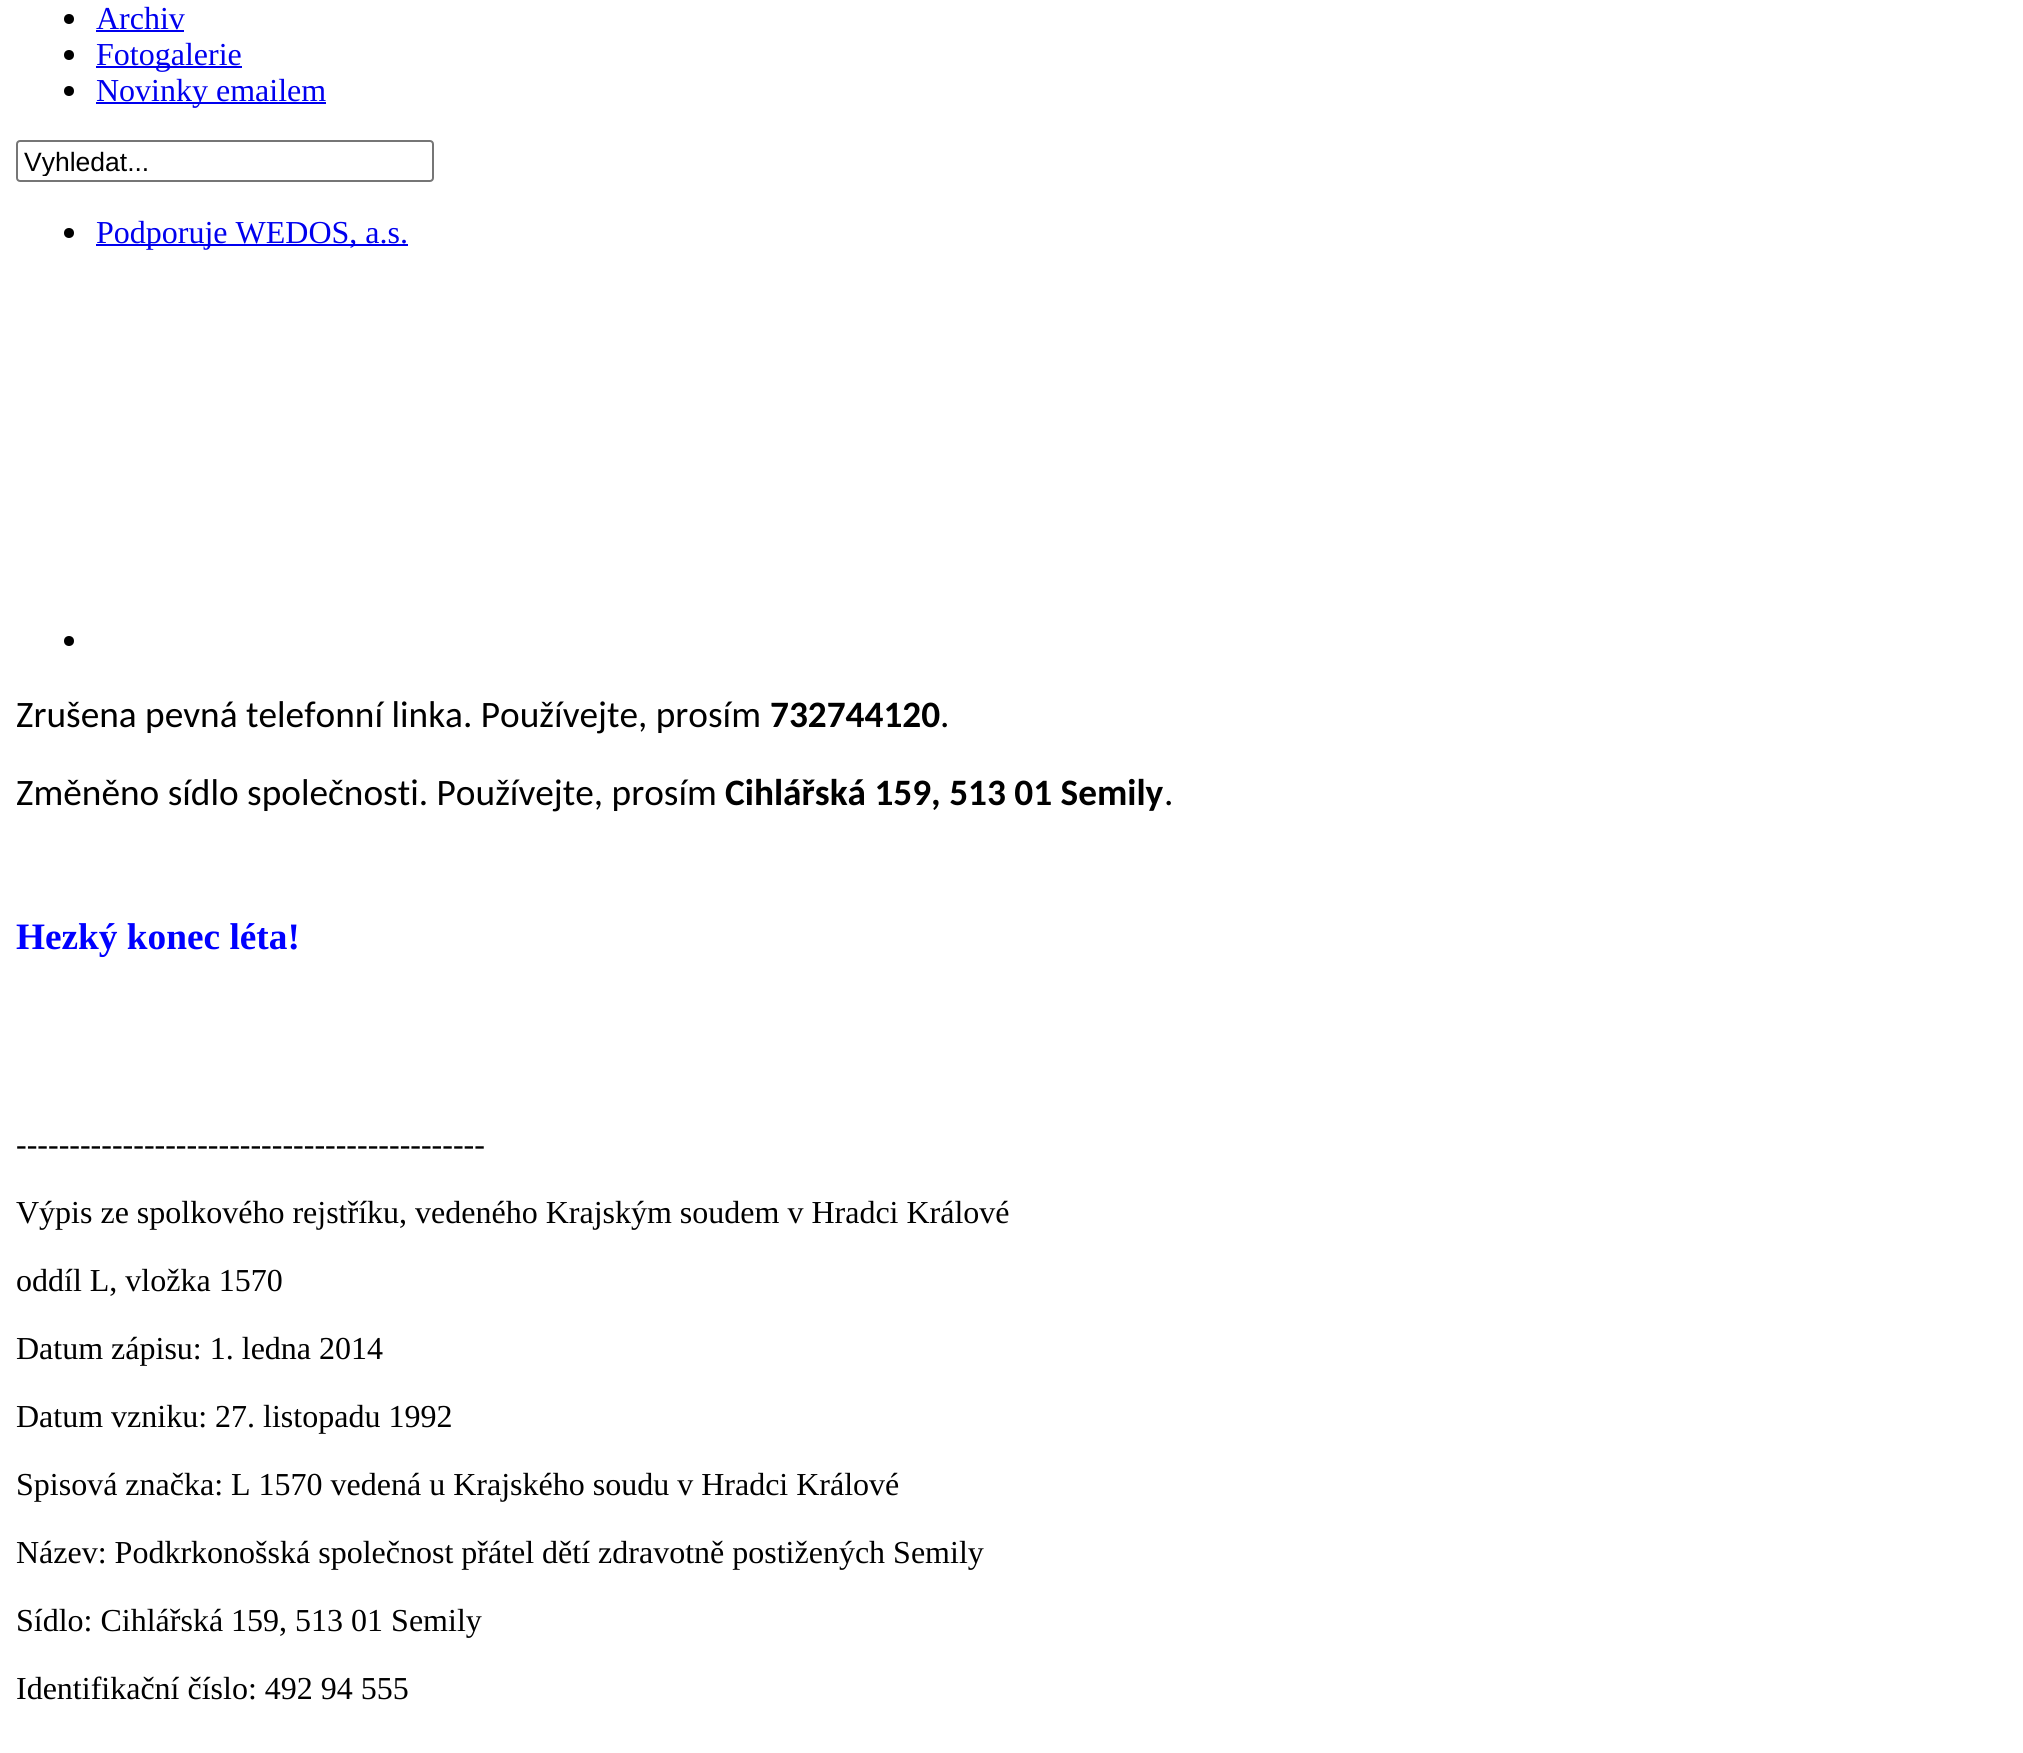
#include <cairo.h>
#include <math.h>
#include <stddef.h>


static void rgb(cairo_t *cr, int r, int g, int b)
{
	cairo_set_source_rgb(cr, r / 255.0, g / 255.0, b / 255.0);
}

static void face(cairo_t *cr, const char *family, double size, int italic, int bold)
{
	cairo_select_font_face(cr, family, italic ? CAIRO_FONT_SLANT_ITALIC : CAIRO_FONT_SLANT_NORMAL,
		bold ? CAIRO_FONT_WEIGHT_BOLD : CAIRO_FONT_WEIGHT_NORMAL);
	cairo_set_font_size(cr, size);
}

static void label(cairo_t *cr, double x, double y, const char *s)
{
	cairo_move_to(cr, x, y);
	cairo_show_text(cr, s);
}

static void rect(cairo_t *cr, double x, double y, double w, double h)
{
	cairo_rectangle(cr, x, y, w, h);
	cairo_fill(cr);
}

static void rrect(cairo_t *cr, double x, double y, double w, double h, double r)
{
	cairo_new_sub_path(cr);
	cairo_arc(cr, x + w - r, y + h - r, r, 0, M_PI / 2);
	cairo_arc(cr, x + r, y + h - r, r, M_PI / 2, M_PI);
	cairo_arc(cr, x + r, y + r, r, M_PI, 1.5 * M_PI);
	cairo_arc(cr, x + w - r, y + r, r, 1.5 * M_PI, 2 * M_PI);
	cairo_close_path(cr);
}

static void draw(cairo_t *cr) {
	rgb(cr, 255, 255, 255);
	cairo_paint(cr);
	rgb(cr, 0, 0, 0);
	cairo_arc(cr, 69, 19, 5, 0, 2 * M_PI);
	cairo_fill(cr);
	face(cr, "Liberation Serif", 32, 0, 0);
	rgb(cr, 0, 0, 238);
	label(cr, 96, 29, "Archiv");
	rect(cr, 96, 30, 88, 2);
	rgb(cr, 0, 0, 0);
	cairo_new_path(cr);
	cairo_arc(cr, 69, 55, 5, 0, 2 * M_PI);
	cairo_fill(cr);
	rgb(cr, 0, 0, 238);
	rect(cr, 96, 66, 146, 2);
	label(cr, 96, 65, "Fotogalerie");
	rgb(cr, 0, 0, 0);
	cairo_new_path(cr);
	cairo_arc(cr, 69, 91, 5, 0, 2 * M_PI);
	cairo_fill(cr);
	rgb(cr, 0, 0, 238);
	rect(cr, 96, 102, 230, 2);
	label(cr, 96, 101, "Novinky emailem");
	rrect(cr, 17, 141, 416, 40, 3);
	rgb(cr, 118, 118, 118);
	cairo_stroke(cr);
	cairo_save(cr);
	cairo_rectangle(cr, 24, 146, 402, 30);
	cairo_clip(cr);
	face(cr, "Liberation Sans", 26.5, 0, 0);
	rgb(cr, 0, 0, 0);
	label(cr, 24, 171, "Vyhledat...");
	cairo_restore(cr);
	rgb(cr, 0, 0, 0);
	cairo_new_path(cr);
	cairo_arc(cr, 69, 233, 5, 0, 2 * M_PI);
	cairo_fill(cr);
	rgb(cr, 0, 0, 238);
	rect(cr, 96, 244, 312, 2);
	label(cr, 96, 243, "Podporuje WEDOS, a.s.");
	rgb(cr, 0, 0, 0);
	cairo_new_path(cr);
	cairo_arc(cr, 69, 641, 5, 0, 2 * M_PI);
	cairo_fill(cr);
	face(cr, "Carlito", 37.3, 0, 0);
	label(cr, 16, 727, "Zrušena pevná telefonní linka. Používejte, prosím");
	face(cr, "Carlito", 37.3, 0, 1);
	label(cr, 770, 727, "732744120");
	face(cr, "Carlito", 37.3, 0, 0);
	label(cr, 940, 727, ".");
	label(cr, 16, 805, "Změněno sídlo společnosti. Používejte, prosím");
	face(cr, "Carlito", 37.3, 0, 1);
	label(cr, 725, 805, "Cihlářská 159, 513 01 Semily");
	face(cr, "Carlito", 37.3, 0, 0);
	label(cr, 1164, 805, ".");
	face(cr, "Liberation Serif", 37.3, 0, 1);
	rgb(cr, 0, 0, 255);
	label(cr, 16, 949, "Hezký konec léta!");
	face(cr, "Liberation Serif", 32, 0, 0);
	rgb(cr, 0, 0, 0);
	label(cr, 16, 1155, "--------------------------------------------");
	label(cr, 16, 1223, "Výpis ze spolkového rejstříku, vedeného Krajským soudem v Hradci Králové");
	label(cr, 16, 1291, "oddíl L, vložka 1570");
	label(cr, 16, 1359, "Datum zápisu: 1. ledna 2014");
	label(cr, 16, 1427, "Datum vzniku: 27. listopadu 1992");
	label(cr, 16, 1495, "Spisová značka: L 1570 vedená u Krajského soudu v Hradci Králové");
	label(cr, 16, 1563, "Název: Podkrkonošská společnost přátel dětí zdravotně postižených Semily");
	label(cr, 16, 1631, "Sídlo: Cihlářská 159, 513 01 Semily");
	label(cr, 16, 1699, "Identifikační číslo: 492 94 555");
}

int main(void) {
	cairo_surface_t *surface = cairo_image_surface_create(CAIRO_FORMAT_RGB24, 2023, 1753);
	cairo_t *cr = cairo_create(surface);
	cairo_font_options_t *options = cairo_font_options_create();
	cairo_font_options_set_hint_metrics(options, CAIRO_HINT_METRICS_OFF);
	cairo_font_options_set_hint_style(options, CAIRO_HINT_STYLE_NONE);
	cairo_set_font_options(cr, options);
	cairo_set_miter_limit(cr, 4);
	draw(cr);
	cairo_surface_write_to_png(surface, "render.png");
	cairo_font_options_destroy(options);
	cairo_destroy(cr);
	cairo_surface_destroy(surface);
	return 0;
}
